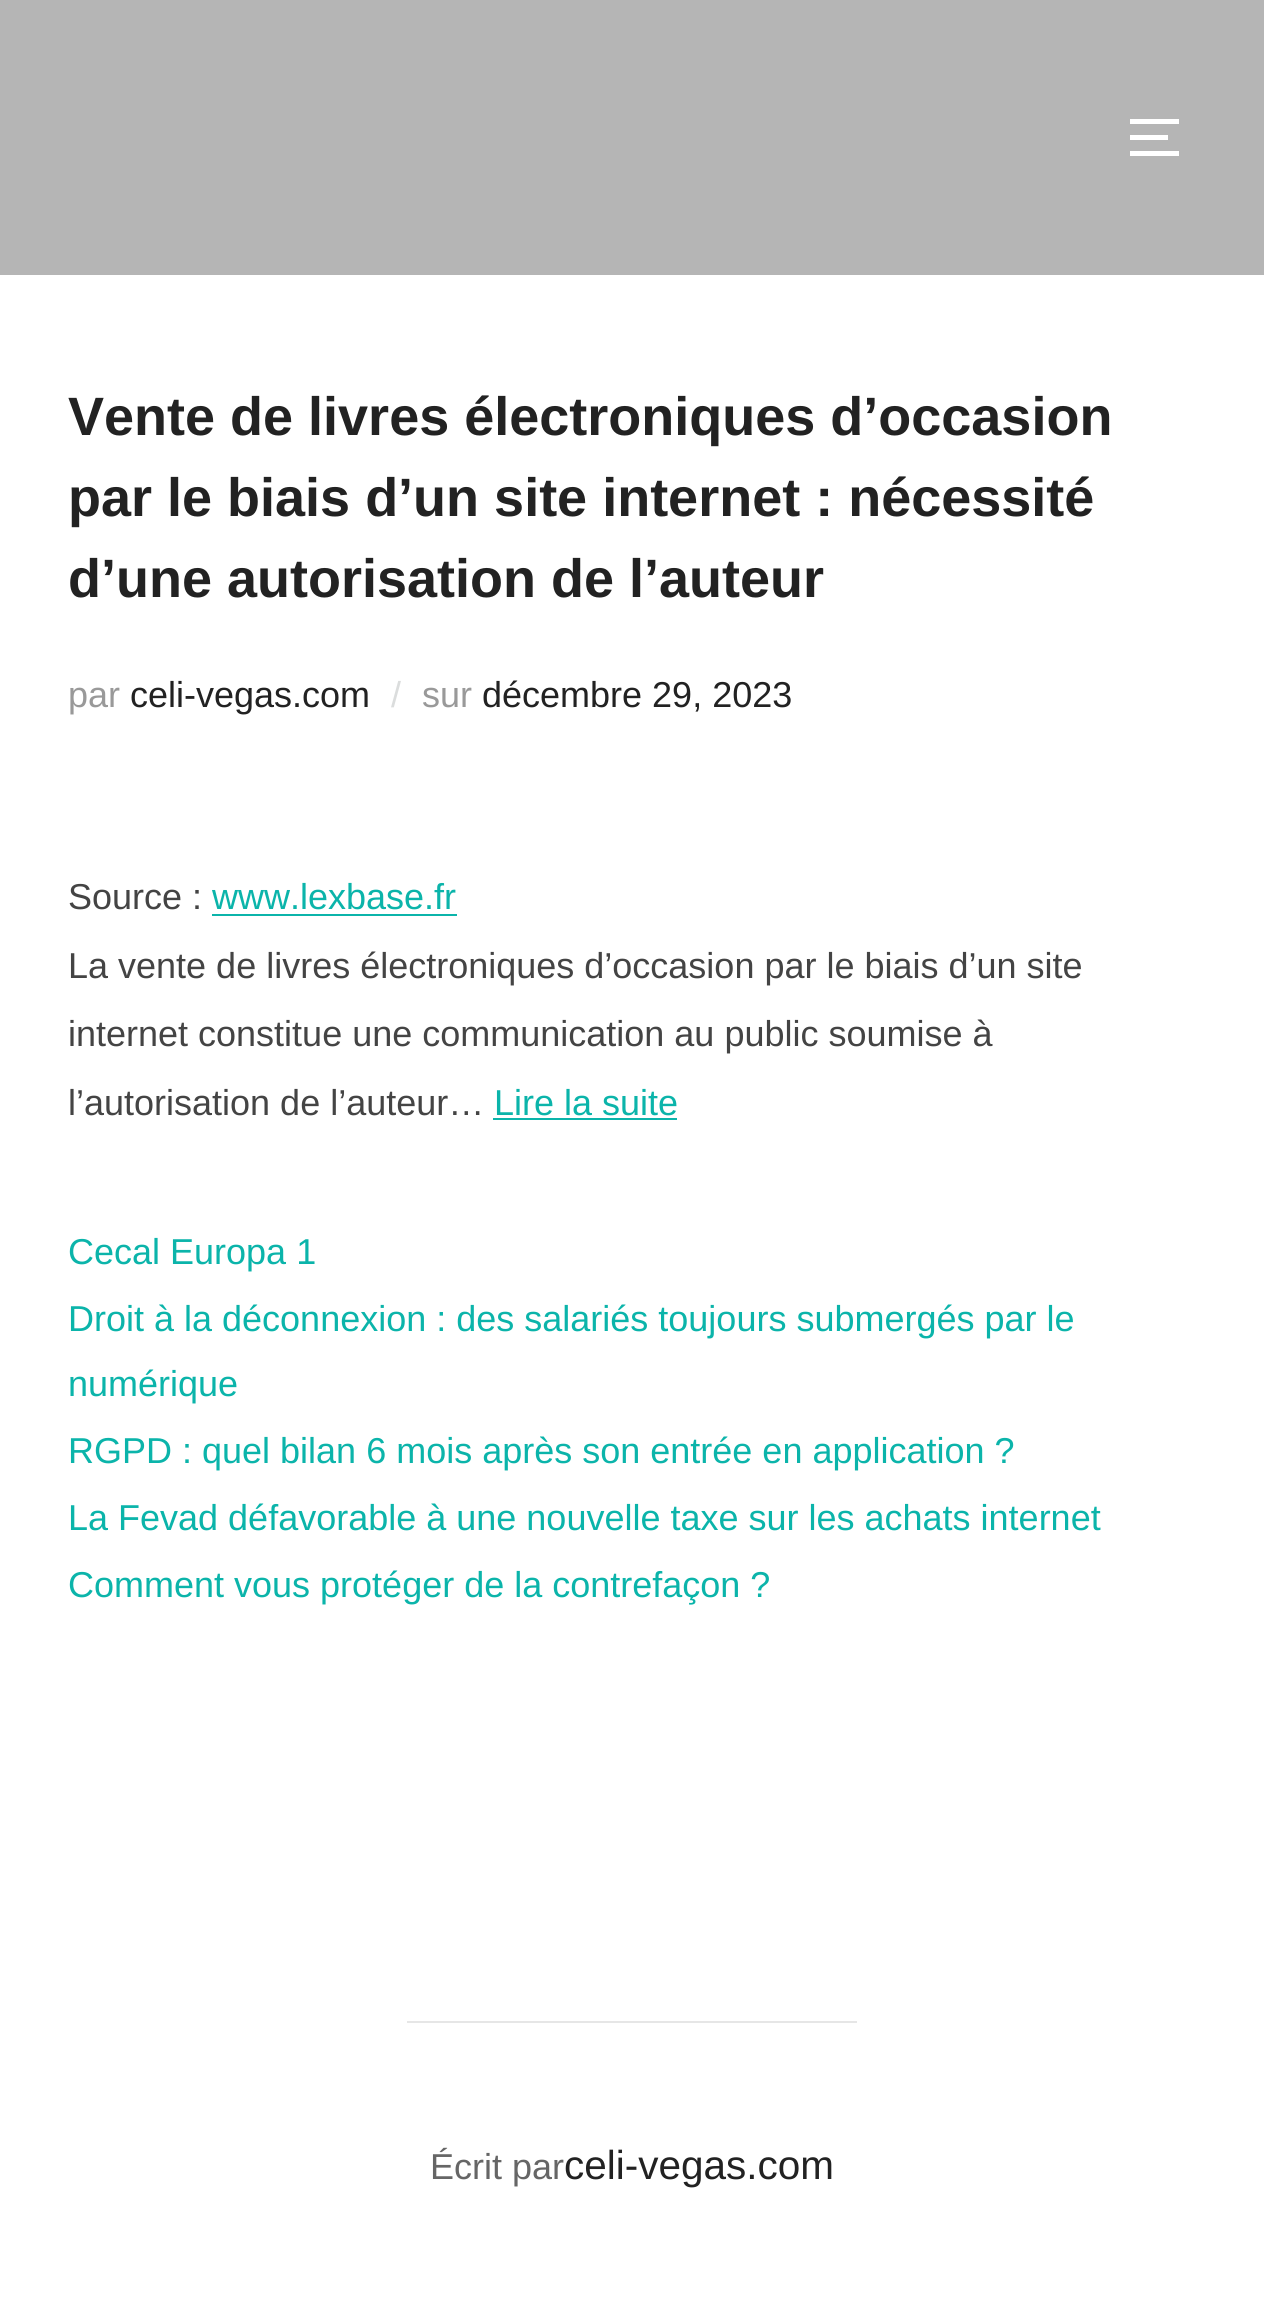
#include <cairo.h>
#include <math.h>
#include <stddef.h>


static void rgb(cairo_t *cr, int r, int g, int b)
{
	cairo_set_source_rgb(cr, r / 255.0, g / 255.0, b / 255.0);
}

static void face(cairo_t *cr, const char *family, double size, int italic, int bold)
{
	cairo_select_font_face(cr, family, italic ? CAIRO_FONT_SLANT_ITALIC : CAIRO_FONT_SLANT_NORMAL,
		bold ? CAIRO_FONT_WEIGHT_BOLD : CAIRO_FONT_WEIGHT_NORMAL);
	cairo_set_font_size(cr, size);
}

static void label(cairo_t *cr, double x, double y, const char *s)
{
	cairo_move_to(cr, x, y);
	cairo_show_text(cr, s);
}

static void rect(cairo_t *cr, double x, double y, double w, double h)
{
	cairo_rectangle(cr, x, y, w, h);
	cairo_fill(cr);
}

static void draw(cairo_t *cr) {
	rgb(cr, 255, 255, 255);
	cairo_paint(cr);
	rgb(cr, 181, 181, 181);
	rect(cr, 0, 0, 1264, 275);
	rgb(cr, 255, 255, 255);
	rect(cr, 1130, 119, 49, 5);
	rect(cr, 1130, 135, 38, 5);
	rect(cr, 1130, 151, 49, 5);
	face(cr, "Liberation Sans", 54, 0, 1);
	rgb(cr, 34, 34, 34);
	label(cr, 68, 435, "Vente de livres électroniques d’occasion");
	label(cr, 68, 516, "par le biais d’un site internet : nécessité");
	label(cr, 68, 597, "d’une autorisation de l’auteur");
	face(cr, "Liberation Sans", 36, 0, 0);
	rgb(cr, 153, 153, 153);
	label(cr, 68, 707, "par");
	rgb(cr, 34, 34, 34);
	label(cr, 130, 707, "celi-vegas.com");
	rgb(cr, 219, 221, 221);
	label(cr, 391, 707, "/");
	rgb(cr, 153, 153, 153);
	label(cr, 422, 707, "sur");
	rgb(cr, 34, 34, 34);
	label(cr, 482, 707, "décembre 29, 2023");
	rgb(cr, 68, 68, 68);
	label(cr, 68, 909, "Source :");
	rgb(cr, 11, 180, 170);
	label(cr, 212, 909, "www.lexbase.fr");
	rect(cr, 212, 914, 245, 2);
	rgb(cr, 68, 68, 68);
	label(cr, 68, 978, "La vente de livres électroniques d’occasion par le biais d’un site");
	label(cr, 68, 1046, "internet constitue une communication au public soumise à");
	label(cr, 68, 1115, "l’autorisation de l’auteur…");
	rgb(cr, 11, 180, 170);
	label(cr, 494, 1115, "Lire la suite");
	rect(cr, 493, 1118, 184, 2);
	label(cr, 68, 1264, "Cecal Europa 1");
	label(cr, 68, 1331, "Droit à la déconnexion : des salariés toujours submergés par le");
	label(cr, 68, 1396, "numérique");
	label(cr, 68, 1463, "RGPD : quel bilan 6 mois après son entrée en application ?");
	label(cr, 68, 1530, "La Fevad défavorable à une nouvelle taxe sur les achats internet");
	label(cr, 68, 1597, "Comment vous protéger de la contrefaçon ?");
	rgb(cr, 230, 230, 230);
	rect(cr, 407, 2021, 450, 2);
	rgb(cr, 102, 102, 102);
	label(cr, 430, 2179, "Écrit par");
	face(cr, "Liberation Sans", 40.5, 0, 0);
	rgb(cr, 34, 34, 34);
	label(cr, 564, 2179, "celi-vegas.com");
}

int main(void) {
	cairo_surface_t *surface = cairo_image_surface_create(CAIRO_FORMAT_RGB24, 1264, 2312);
	cairo_t *cr = cairo_create(surface);
	cairo_font_options_t *options = cairo_font_options_create();
	cairo_font_options_set_hint_metrics(options, CAIRO_HINT_METRICS_OFF);
	cairo_font_options_set_hint_style(options, CAIRO_HINT_STYLE_NONE);
	cairo_set_font_options(cr, options);
	cairo_set_miter_limit(cr, 4);
	draw(cr);
	cairo_surface_write_to_png(surface, "render.png");
	cairo_font_options_destroy(options);
	cairo_destroy(cr);
	cairo_surface_destroy(surface);
	return 0;
}
